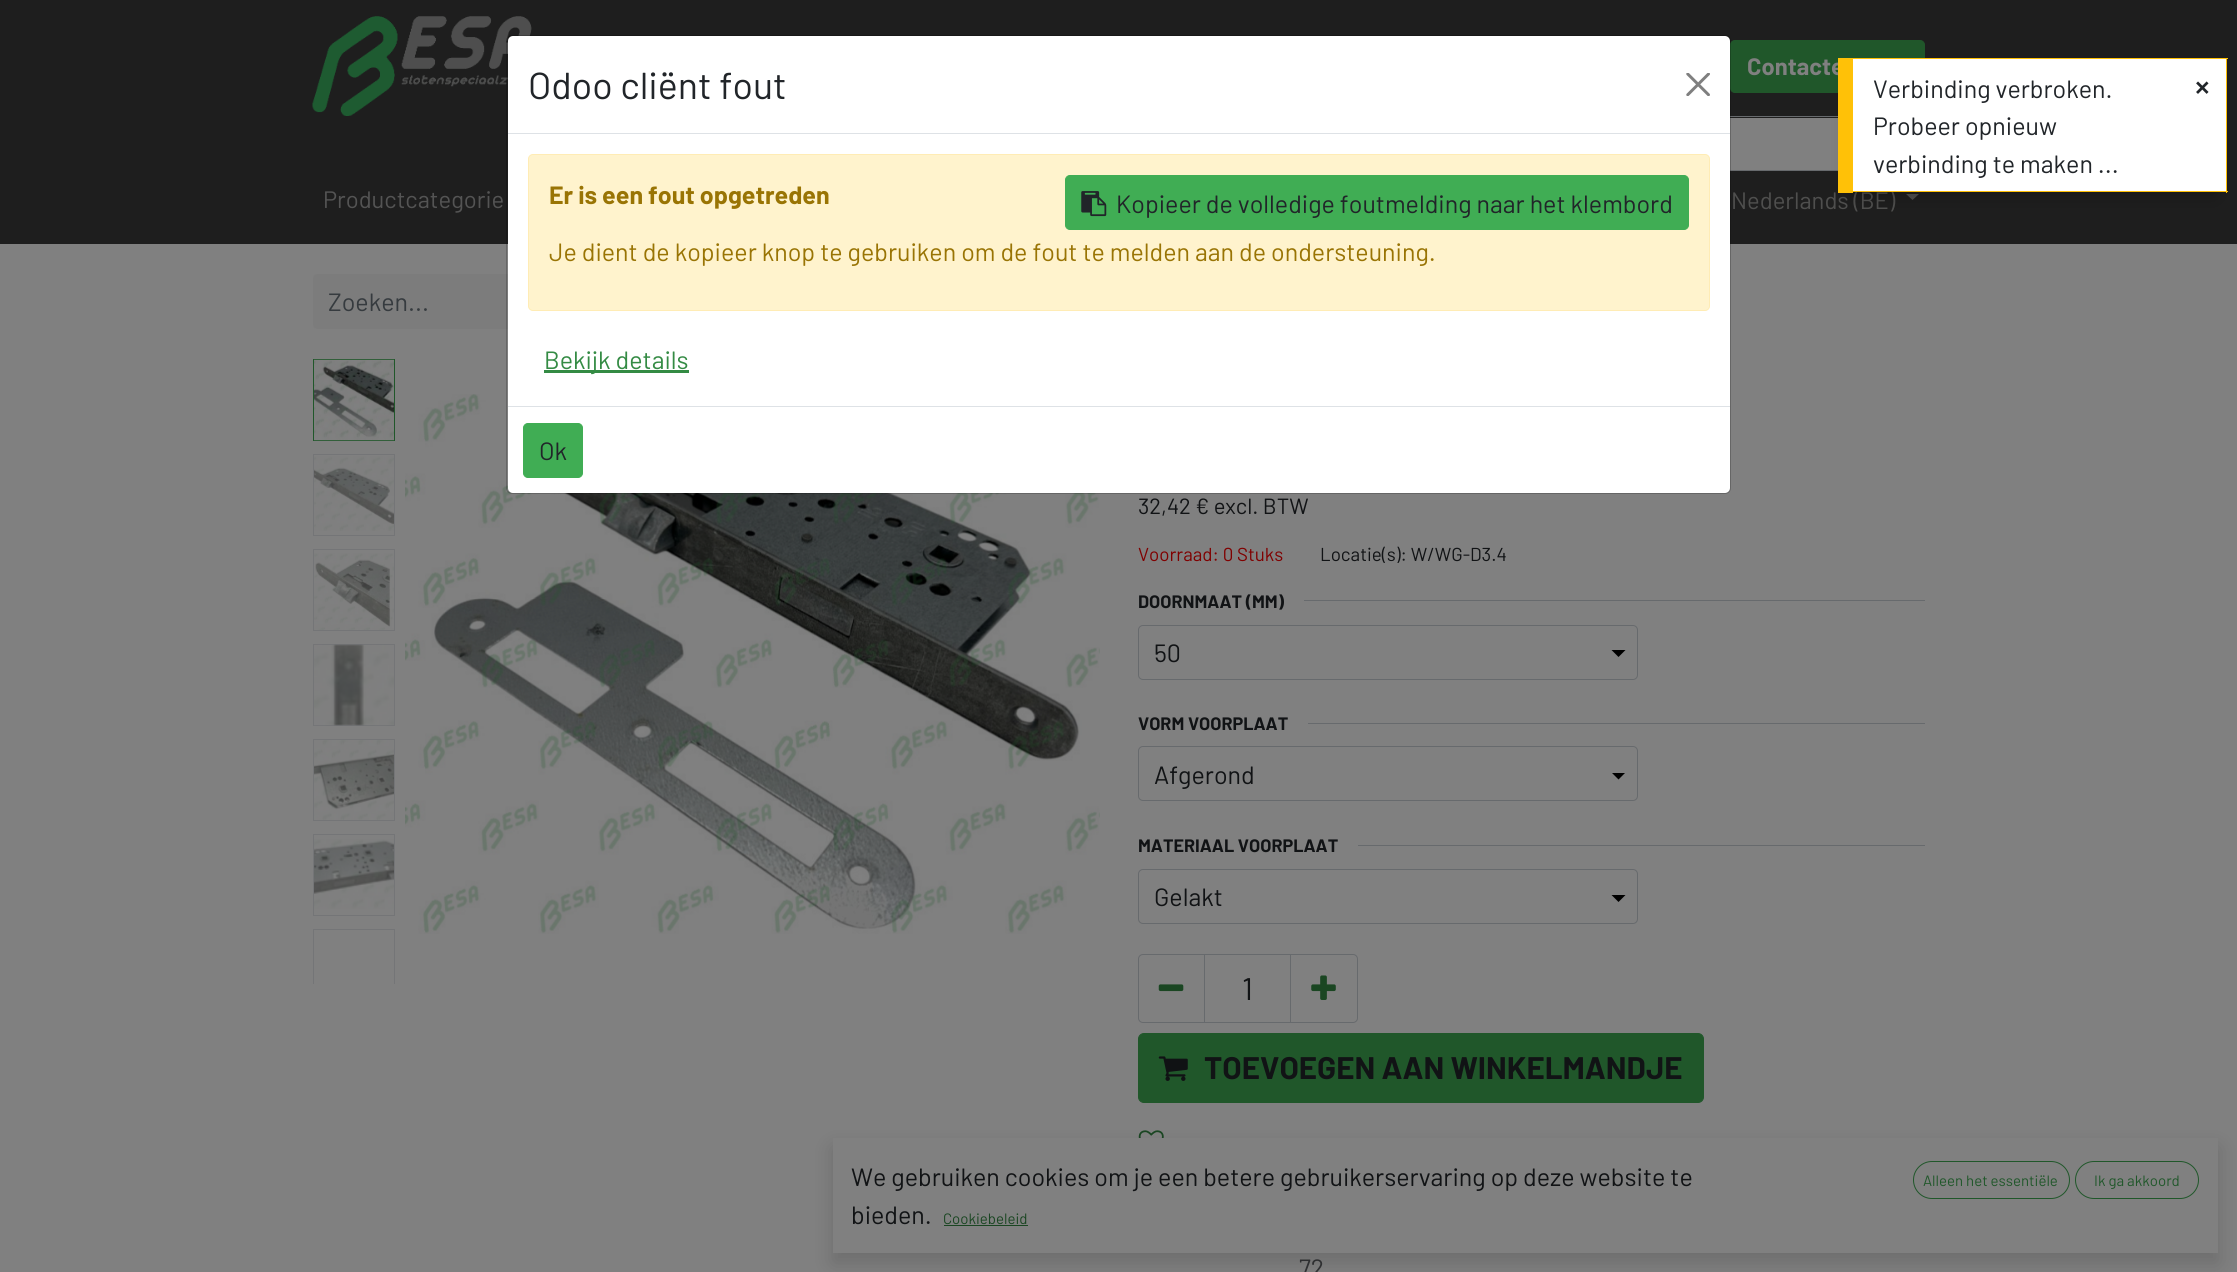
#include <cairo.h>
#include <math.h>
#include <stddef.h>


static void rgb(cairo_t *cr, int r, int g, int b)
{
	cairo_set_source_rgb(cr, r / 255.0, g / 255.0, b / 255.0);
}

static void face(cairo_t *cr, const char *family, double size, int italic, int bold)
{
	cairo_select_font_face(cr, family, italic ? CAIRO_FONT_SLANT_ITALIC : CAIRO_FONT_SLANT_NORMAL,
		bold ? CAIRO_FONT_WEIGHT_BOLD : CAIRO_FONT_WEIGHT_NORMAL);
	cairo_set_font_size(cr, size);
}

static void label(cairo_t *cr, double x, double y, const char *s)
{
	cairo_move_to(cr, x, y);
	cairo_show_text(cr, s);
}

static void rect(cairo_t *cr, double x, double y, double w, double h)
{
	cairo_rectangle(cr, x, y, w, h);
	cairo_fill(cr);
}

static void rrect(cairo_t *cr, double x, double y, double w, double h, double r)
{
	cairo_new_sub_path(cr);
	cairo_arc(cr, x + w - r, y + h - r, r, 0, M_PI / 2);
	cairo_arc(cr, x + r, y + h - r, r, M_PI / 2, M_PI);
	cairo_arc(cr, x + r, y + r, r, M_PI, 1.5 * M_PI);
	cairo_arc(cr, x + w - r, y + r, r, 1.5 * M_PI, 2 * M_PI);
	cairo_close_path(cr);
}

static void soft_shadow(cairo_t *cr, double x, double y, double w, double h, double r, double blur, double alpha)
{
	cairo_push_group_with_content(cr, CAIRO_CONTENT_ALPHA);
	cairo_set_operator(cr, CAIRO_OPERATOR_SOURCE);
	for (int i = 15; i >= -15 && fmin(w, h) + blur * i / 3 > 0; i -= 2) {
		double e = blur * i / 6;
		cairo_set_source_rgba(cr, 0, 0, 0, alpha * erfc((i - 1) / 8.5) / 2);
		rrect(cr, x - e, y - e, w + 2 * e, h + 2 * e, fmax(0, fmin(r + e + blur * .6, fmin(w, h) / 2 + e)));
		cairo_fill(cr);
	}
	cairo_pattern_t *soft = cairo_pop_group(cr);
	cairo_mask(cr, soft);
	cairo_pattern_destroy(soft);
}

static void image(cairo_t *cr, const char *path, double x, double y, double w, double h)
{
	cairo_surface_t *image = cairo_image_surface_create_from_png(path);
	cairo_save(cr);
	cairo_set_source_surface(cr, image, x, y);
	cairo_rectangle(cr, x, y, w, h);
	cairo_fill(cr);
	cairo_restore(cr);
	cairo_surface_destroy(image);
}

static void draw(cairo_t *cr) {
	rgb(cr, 128, 128, 128);
	cairo_paint(cr);
	rgb(cr, 30, 30, 30);
	rect(cr, 0, 0, 2237, 244);
	image(cr, "image0.png", 312, 16, 220, 100);
	rgb(cr, 32, 87, 42);
	rrect(cr, 1730.5, 40.5, 194, 52, 4.5);
	cairo_fill_preserve(cr);
	cairo_set_line_width(cr, 1);
	cairo_stroke(cr);
	face(cr, "Barlow", 23.75, 0, 1);
	rgb(cr, 128, 128, 128);
	label(cr, 1747, 75, "Contacte");
	rect(cr, 1730, 118, 108, 52);
	cairo_rectangle(cr, 1593.5, 116.5, 276, 54);
	rgb(cr, 103, 106, 109);
	cairo_stroke(cr);
	face(cr, "Barlow", 23.75, 0, 0);
	rgb(cr, 84, 84, 84);
	label(cr, 323, 208, "Productcategorie");
	rgb(cr, 79, 79, 78);
	label(cr, 1731, 209, "Nederlands (BE)");
	cairo_new_path(cr);
	cairo_move_to(cr, 1906, 194);
	cairo_line_to(cr, 1919, 194);
	cairo_line_to(cr, 1912.5, 200);
	cairo_close_path(cr);
	cairo_fill(cr);
	rgb(cr, 124, 124, 124);
	cairo_new_path(cr);
	cairo_move_to(cr, 318, 274);
	cairo_line_to(cr, 1044, 274);
	cairo_line_to(cr, 1044, 329);
	cairo_line_to(cr, 318, 329);
	cairo_curve_to(cr, 315, 329, 313, 327, 313, 324);
	cairo_line_to(cr, 313, 279);
	cairo_curve_to(cr, 313, 276, 315, 274, 318, 274);
	cairo_close_path(cr);
	cairo_fill(cr);
	face(cr, "Barlow", 25, 0, 0);
	rgb(cr, 54, 59, 63);
	label(cr, 328, 311, "Zoeken...");
	cairo_rectangle(cr, 313.5, 359.5, 81, 81);
	rgb(cr, 32, 87, 42);
	cairo_stroke(cr);
	image(cr, "image1.png", 314, 359, 80, 82);
	cairo_rectangle(cr, 313.5, 454.5, 81, 81);
	rgb(cr, 116, 117, 119);
	cairo_stroke(cr);
	image(cr, "image2.png", 314, 456, 80, 75);
	cairo_rectangle(cr, 313.5, 549.5, 81, 81);
	cairo_stroke(cr);
	image(cr, "image3.png", 314, 553, 80, 77);
	cairo_rectangle(cr, 313.5, 644.5, 81, 81);
	cairo_stroke(cr);
	image(cr, "image4.png", 314, 644, 80, 82);
	cairo_rectangle(cr, 313.5, 739.5, 81, 81);
	cairo_stroke(cr);
	image(cr, "image5.png", 314, 740, 80, 80);
	cairo_rectangle(cr, 313.5, 834.5, 81, 81);
	cairo_stroke(cr);
	image(cr, "image6.png", 314, 839, 80, 70);
	cairo_save(cr);
	cairo_rectangle(cr, 313, 359, 787, 625);
	cairo_clip(cr);
	cairo_rectangle(cr, 313.5, 929.5, 81, 81);
	cairo_stroke(cr);
	cairo_restore(cr);
	image(cr, "image7.png", 405, 394, 695, 540);
	face(cr, "Barlow", 22, 0, 0);
	rgb(cr, 17, 19, 21);
	label(cr, 1138, 514, "32,42 € excl. BTW");
	face(cr, "Barlow", 18.75, 0, 0);
	rgb(cr, 128, 0, 0);
	label(cr, 1138, 561, "Voorraad: 0 Stuks");
	rgb(cr, 17, 19, 21);
	label(cr, 1320, 561, "Locatie(s): W/WG-D3.4");
	face(cr, "Barlow", 18, 0, 1);
	label(cr, 1138, 608, "DOORNMAAT (MM)");
	rgb(cr, 103, 106, 109);
	rect(cr, 1304, 600, 621, 1);
	rgb(cr, 0, 0, 0);
	cairo_new_path(cr);
	cairo_move_to(cr, 1611.5, 650);
	cairo_line_to(cr, 1625.5, 650);
	cairo_line_to(cr, 1618.5, 657);
	cairo_close_path(cr);
	cairo_fill(cr);
	rrect(cr, 1138.5, 625.5, 499, 54, 4.5);
	rgb(cr, 103, 106, 109);
	cairo_stroke(cr);
	face(cr, "Barlow", 25, 0, 0);
	rgb(cr, 17, 19, 21);
	label(cr, 1154, 662, "50");
	face(cr, "Barlow", 18, 0, 1);
	label(cr, 1138, 730, "VORM VOORPLAAT");
	rgb(cr, 103, 106, 109);
	rect(cr, 1308, 723, 617, 1);
	cairo_save(cr);
	cairo_rectangle(cr, 1611, 773, 25, 15);
	cairo_clip(cr);
	rgb(cr, 0, 0, 0);
	cairo_new_path(cr);
	cairo_move_to(cr, 1611.5, 772.5);
	cairo_line_to(cr, 1625.5, 772.5);
	cairo_line_to(cr, 1618.5, 779.5);
	cairo_close_path(cr);
	cairo_fill(cr);
	cairo_restore(cr);
	rrect(cr, 1138.5, 746.5, 499, 54, 4.5);
	cairo_stroke(cr);
	face(cr, "Barlow", 25, 0, 0);
	rgb(cr, 17, 19, 21);
	label(cr, 1154, 784, "Afgerond");
	face(cr, "Barlow", 18, 0, 1);
	label(cr, 1138, 852, "MATERIAAL VOORPLAAT");
	rgb(cr, 103, 106, 109);
	rect(cr, 1358, 845, 567, 1);
	rgb(cr, 0, 0, 0);
	cairo_new_path(cr);
	cairo_move_to(cr, 1611.5, 895);
	cairo_line_to(cr, 1625.5, 895);
	cairo_line_to(cr, 1618.5, 902);
	cairo_close_path(cr);
	cairo_fill(cr);
	rrect(cr, 1138.5, 869.5, 499, 54, 4.5);
	rgb(cr, 103, 106, 109);
	cairo_stroke(cr);
	face(cr, "Barlow", 25, 0, 0);
	rgb(cr, 17, 19, 21);
	label(cr, 1154, 906, "Gelakt");
	cairo_rectangle(cr, 1204.5, 954.5, 86, 68);
	rgb(cr, 103, 106, 109);
	cairo_stroke(cr);
	cairo_new_path(cr);
	cairo_move_to(cr, 1143, 954.5);
	cairo_line_to(cr, 1204.5, 954.5);
	cairo_line_to(cr, 1204.5, 1022.5);
	cairo_line_to(cr, 1143, 1022.5);
	cairo_curve_to(cr, 1140.5, 1022.5, 1138.5, 1020.5, 1138.5, 1018);
	cairo_line_to(cr, 1138.5, 959);
	cairo_curve_to(cr, 1138.5, 956.5, 1140.5, 954.5, 1143, 954.5);
	cairo_close_path(cr);
	cairo_stroke(cr);
	image(cr, "image8.png", 1158, 984, 26, 8);
	face(cr, "Barlow", 31.25, 0, 0);
	rgb(cr, 17, 19, 21);
	label(cr, 1242, 1000, "1");
	cairo_new_path(cr);
	cairo_move_to(cr, 1290.5, 954.5);
	cairo_line_to(cr, 1353, 954.5);
	cairo_curve_to(cr, 1355.5, 954.5, 1357.5, 956.5, 1357.5, 959);
	cairo_line_to(cr, 1357.5, 1018);
	cairo_curve_to(cr, 1357.5, 1020.5, 1355.5, 1022.5, 1353, 1022.5);
	cairo_line_to(cr, 1290.5, 1022.5);
	cairo_close_path(cr);
	rgb(cr, 103, 106, 109);
	cairo_stroke(cr);
	image(cr, "image9.png", 1311, 975, 25, 25);
	rgb(cr, 32, 87, 42);
	rrect(cr, 1138.5, 1033.5, 565, 69, 5.5);
	cairo_fill_preserve(cr);
	cairo_stroke(cr);
	image(cr, "image10.png", 1158, 1056, 30, 25);
	face(cr, "Barlow", 31.25, 0, 1);
	rgb(cr, 17, 19, 21);
	label(cr, 1204, 1079, "TOEVOEGEN AAN WINKELMANDJE");
	image(cr, "image11.png", 1138, 1130, 26, 8);
	face(cr, "Barlow", 25, 0, 0);
	rgb(cr, 50, 51, 53);
	label(cr, 1299, 1277, "72");
	rgb(cr, 0, 0, 0);
	soft_shadow(cr, 833, 1148, 1385, 115, 0, 10, 0.15);
	rgb(cr, 128, 128, 128);
	rect(cr, 833, 1138, 1385, 115);
	rgb(cr, 17, 19, 21);
	label(cr, 851, 1186, "We gebruiken cookies om je een betere gebruikerservaring op deze website te");
	label(cr, 851, 1224, "bieden.");
	face(cr, "Barlow", 15, 0, 0);
	rgb(cr, 26, 70, 34);
	label(cr, 943, 1224, "Cookiebeleid");
	rect(cr, 944, 1225, 84, 1);
	rrect(cr, 1913.5, 1161.5, 156, 37, 18.5);
	rgb(cr, 32, 87, 42);
	cairo_stroke(cr);
	label(cr, 1923, 1186, "Alleen het essentiële");
	rrect(cr, 2075.5, 1161.5, 123, 37, 18.5);
	cairo_stroke(cr);
	label(cr, 2094, 1186, "Ik ga akkoord");
	rgb(cr, 255, 255, 255);
	rrect(cr, 508, 36, 1222, 457, 5);
	cairo_fill(cr);
	rrect(cr, 506.5, 35.5, 1224, 458, 5.5);
	cairo_set_source_rgba(cr, 0, 0, 0, 0.2);
	cairo_stroke(cr);
	rgb(cr, 222, 226, 230);
	rect(cr, 508, 133, 1222, 1);
	face(cr, "Barlow", 37.5, 0, 0);
	rgb(cr, 33, 37, 41);
	label(cr, 528, 99, "Odoo cliënt fout");
	image(cr, "image12.png", 1686, 73, 24, 23);
	rgb(cr, 255, 243, 205);
	rrect(cr, 528.5, 154.5, 1181, 156, 4.5);
	cairo_fill_preserve(cr);
	rgb(cr, 255, 236, 181);
	cairo_stroke(cr);
	face(cr, "Barlow", 25, 0, 1);
	rgb(cr, 153, 116, 4);
	label(cr, 549, 204, "Er is een fout opgetreden");
	rgb(cr, 64, 173, 84);
	rrect(cr, 1065.5, 175.5, 623, 54, 4.5);
	cairo_fill_preserve(cr);
	cairo_stroke(cr);
	image(cr, "image13.png", 1081, 191, 26, 26);
	face(cr, "Barlow", 25, 0, 0);
	rgb(cr, 33, 37, 41);
	label(cr, 1116, 213, "Kopieer de volledige foutmelding naar het klembord");
	rgb(cr, 153, 116, 4);
	label(cr, 549, 261, "Je dient de kopieer knop te gebruiken om de fout te melden aan de ondersteuning.");
	rgb(cr, 52, 139, 68);
	rect(cr, 544, 370, 145, 3);
	label(cr, 544, 369, "Bekijk details");
	rgb(cr, 222, 226, 230);
	rect(cr, 508, 406, 1222, 1);
	rgb(cr, 64, 173, 84);
	rrect(cr, 523.5, 423.5, 59, 54, 4.5);
	cairo_fill_preserve(cr);
	cairo_stroke(cr);
	rgb(cr, 33, 37, 41);
	label(cr, 539, 460, "Ok");
	rgb(cr, 0, 0, 0);
	soft_shadow(cr, 1850, 85, 365, 110, 0, 9, 0.25);
	rgb(cr, 255, 255, 255);
	rect(cr, 1853, 59, 373, 132);
	rgb(cr, 255, 193, 7);
	rect(cr, 1853, 58, 375, 1);
	rect(cr, 2226, 58, 1, 135);
	rect(cr, 1853, 191, 375, 1);
	rect(cr, 1838, 58, 15, 135);
	rgb(cr, 33, 37, 41);
	label(cr, 1873, 98, "Verbinding verbroken.");
	label(cr, 1873, 135, "Probeer opnieuw");
	label(cr, 1873, 173, "verbinding te maken ...");
	face(cr, "Liberation Sans", 25, 0, 1);
	label(cr, 2195, 96, "×");
}

int main(void) {
	cairo_surface_t *surface = cairo_image_surface_create(CAIRO_FORMAT_RGB24, 2237, 1272);
	cairo_t *cr = cairo_create(surface);
	cairo_font_options_t *options = cairo_font_options_create();
	cairo_font_options_set_hint_metrics(options, CAIRO_HINT_METRICS_OFF);
	cairo_font_options_set_hint_style(options, CAIRO_HINT_STYLE_NONE);
	cairo_set_font_options(cr, options);
	cairo_set_miter_limit(cr, 4);
	draw(cr);
	cairo_surface_write_to_png(surface, "render.png");
	cairo_font_options_destroy(options);
	cairo_destroy(cr);
	cairo_surface_destroy(surface);
	return 0;
}
